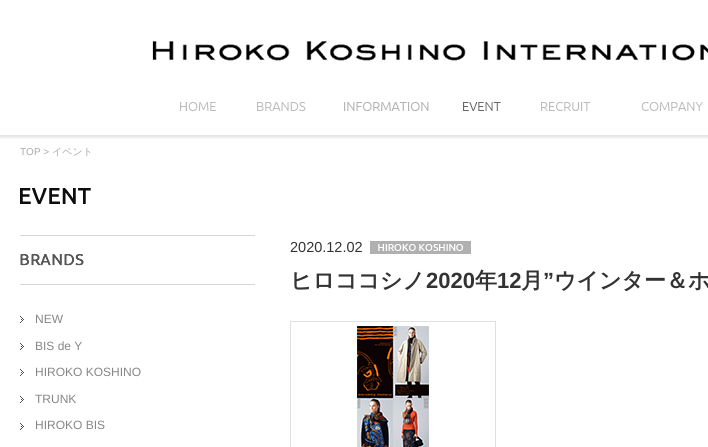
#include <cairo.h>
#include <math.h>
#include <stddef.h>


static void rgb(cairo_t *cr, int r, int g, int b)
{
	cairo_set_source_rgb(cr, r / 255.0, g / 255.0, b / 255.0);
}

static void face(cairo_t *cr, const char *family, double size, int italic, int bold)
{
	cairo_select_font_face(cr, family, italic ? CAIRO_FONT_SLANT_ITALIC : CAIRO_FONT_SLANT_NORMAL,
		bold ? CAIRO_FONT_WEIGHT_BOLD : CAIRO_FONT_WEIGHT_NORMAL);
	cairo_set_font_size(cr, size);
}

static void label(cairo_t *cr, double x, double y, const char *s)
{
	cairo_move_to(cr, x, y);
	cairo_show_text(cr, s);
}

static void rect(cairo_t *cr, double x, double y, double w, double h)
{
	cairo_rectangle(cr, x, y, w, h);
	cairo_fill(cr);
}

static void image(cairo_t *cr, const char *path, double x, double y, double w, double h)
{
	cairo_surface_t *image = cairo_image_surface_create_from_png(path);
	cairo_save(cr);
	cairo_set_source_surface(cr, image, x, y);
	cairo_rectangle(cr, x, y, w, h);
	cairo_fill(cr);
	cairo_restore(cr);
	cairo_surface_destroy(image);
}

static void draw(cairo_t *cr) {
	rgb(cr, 255, 255, 255);
	cairo_paint(cr);
	image(cr, "image0.png", 152, 40, 556, 21);
	image(cr, "image1.png", 180, 102, 37, 9);
	image(cr, "image2.png", 257, 102, 49, 9);
	image(cr, "image3.png", 344, 102, 85, 9);
	image(cr, "image4.png", 463, 102, 38, 9);
	image(cr, "image5.png", 541, 102, 50, 9);
	image(cr, "image6.png", 641, 102, 62, 9);
	image(cr, "image7.png", 0, 135, 708, 4);
	face(cr, "Liberation Sans", 10, 0, 0);
	rgb(cr, 170, 170, 170);
	label(cr, 20, 155, "TOP >");
	face(cr, "WenQuanYi Zen Hei Medium", 10, 0, 0);
	label(cr, 52, 155, "イベント");
	image(cr, "image8.png", 20, 188, 71, 16);
	face(cr, "Liberation Sans", 14.5, 0, 0);
	rgb(cr, 51, 51, 51);
	label(cr, 290, 252, "2020.12.02");
	image(cr, "image9.png", 370, 241, 101, 13);
	face(cr, "WenQuanYi Zen Hei", 22, 0, 1);
	label(cr, 290, 288, "ヒロココシノ");
	face(cr, "Liberation Sans", 22, 0, 1);
	label(cr, 426, 288, "2020");
	face(cr, "WenQuanYi Zen Hei", 22, 0, 1);
	label(cr, 475, 288, "年");
	face(cr, "Liberation Sans", 22, 0, 1);
	label(cr, 497, 288, "12");
	face(cr, "WenQuanYi Zen Hei", 22, 0, 1);
	label(cr, 521, 288, "月");
	face(cr, "Liberation Sans", 22, 0, 1);
	label(cr, 543, 288, "”");
	face(cr, "WenQuanYi Zen Hei", 22, 0, 1);
	label(cr, 554, 288, "ウインター＆ホ");
	cairo_rectangle(cr, 290.5, 321.5, 205, 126);
	rgb(cr, 225, 223, 223);
	cairo_set_line_width(cr, 1);
	cairo_stroke(cr);
	image(cr, "image10.png", 354, 326, 75, 121);
	rgb(cr, 215, 215, 215);
	rect(cr, 20, 235, 235, 1);
	rect(cr, 20, 284, 235, 1);
	image(cr, "image11.png", 20, 254, 64, 12);
	image(cr, "image12.png", 20, 316, 4, 7);
	face(cr, "Liberation Sans", 12, 0, 0);
	rgb(cr, 134, 134, 134);
	label(cr, 35, 323, "NEW");
	image(cr, "image12.png", 20, 343, 4, 7);
	label(cr, 35, 350, "BIS de Y");
	image(cr, "image12.png", 20, 369, 4, 7);
	label(cr, 35, 376, "HIROKO KOSHINO");
	image(cr, "image12.png", 20, 396, 4, 7);
	label(cr, 35, 403, "TRUNK");
	image(cr, "image12.png", 20, 423, 4, 7);
	label(cr, 35, 429, "HIROKO BIS");
}

int main(void) {
	cairo_surface_t *surface = cairo_image_surface_create(CAIRO_FORMAT_RGB24, 708, 447);
	cairo_t *cr = cairo_create(surface);
	cairo_font_options_t *options = cairo_font_options_create();
	cairo_font_options_set_hint_metrics(options, CAIRO_HINT_METRICS_OFF);
	cairo_font_options_set_hint_style(options, CAIRO_HINT_STYLE_NONE);
	cairo_set_font_options(cr, options);
	cairo_set_miter_limit(cr, 4);
	draw(cr);
	cairo_surface_write_to_png(surface, "render.png");
	cairo_font_options_destroy(options);
	cairo_destroy(cr);
	cairo_surface_destroy(surface);
	return 0;
}
